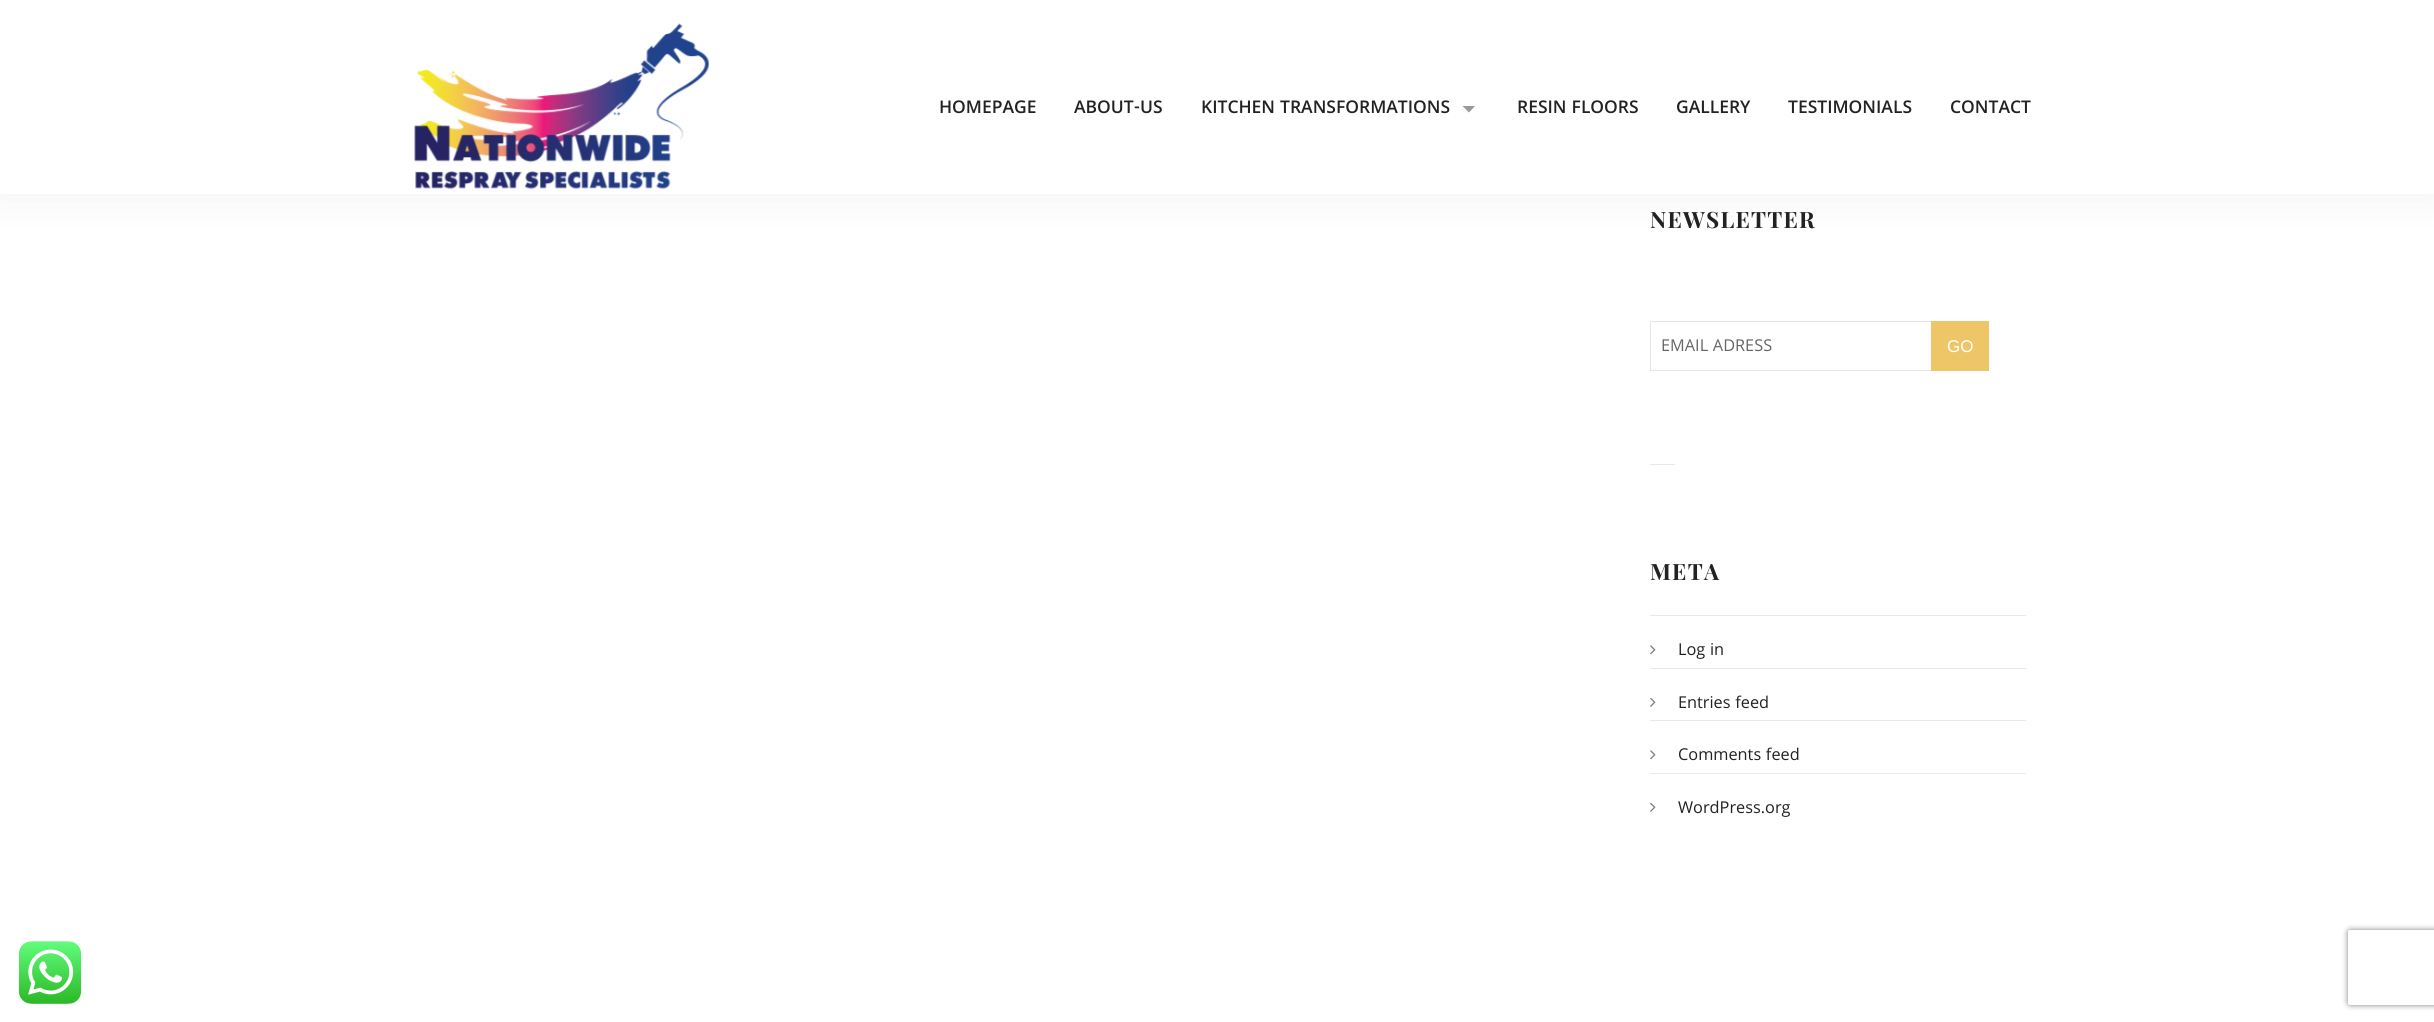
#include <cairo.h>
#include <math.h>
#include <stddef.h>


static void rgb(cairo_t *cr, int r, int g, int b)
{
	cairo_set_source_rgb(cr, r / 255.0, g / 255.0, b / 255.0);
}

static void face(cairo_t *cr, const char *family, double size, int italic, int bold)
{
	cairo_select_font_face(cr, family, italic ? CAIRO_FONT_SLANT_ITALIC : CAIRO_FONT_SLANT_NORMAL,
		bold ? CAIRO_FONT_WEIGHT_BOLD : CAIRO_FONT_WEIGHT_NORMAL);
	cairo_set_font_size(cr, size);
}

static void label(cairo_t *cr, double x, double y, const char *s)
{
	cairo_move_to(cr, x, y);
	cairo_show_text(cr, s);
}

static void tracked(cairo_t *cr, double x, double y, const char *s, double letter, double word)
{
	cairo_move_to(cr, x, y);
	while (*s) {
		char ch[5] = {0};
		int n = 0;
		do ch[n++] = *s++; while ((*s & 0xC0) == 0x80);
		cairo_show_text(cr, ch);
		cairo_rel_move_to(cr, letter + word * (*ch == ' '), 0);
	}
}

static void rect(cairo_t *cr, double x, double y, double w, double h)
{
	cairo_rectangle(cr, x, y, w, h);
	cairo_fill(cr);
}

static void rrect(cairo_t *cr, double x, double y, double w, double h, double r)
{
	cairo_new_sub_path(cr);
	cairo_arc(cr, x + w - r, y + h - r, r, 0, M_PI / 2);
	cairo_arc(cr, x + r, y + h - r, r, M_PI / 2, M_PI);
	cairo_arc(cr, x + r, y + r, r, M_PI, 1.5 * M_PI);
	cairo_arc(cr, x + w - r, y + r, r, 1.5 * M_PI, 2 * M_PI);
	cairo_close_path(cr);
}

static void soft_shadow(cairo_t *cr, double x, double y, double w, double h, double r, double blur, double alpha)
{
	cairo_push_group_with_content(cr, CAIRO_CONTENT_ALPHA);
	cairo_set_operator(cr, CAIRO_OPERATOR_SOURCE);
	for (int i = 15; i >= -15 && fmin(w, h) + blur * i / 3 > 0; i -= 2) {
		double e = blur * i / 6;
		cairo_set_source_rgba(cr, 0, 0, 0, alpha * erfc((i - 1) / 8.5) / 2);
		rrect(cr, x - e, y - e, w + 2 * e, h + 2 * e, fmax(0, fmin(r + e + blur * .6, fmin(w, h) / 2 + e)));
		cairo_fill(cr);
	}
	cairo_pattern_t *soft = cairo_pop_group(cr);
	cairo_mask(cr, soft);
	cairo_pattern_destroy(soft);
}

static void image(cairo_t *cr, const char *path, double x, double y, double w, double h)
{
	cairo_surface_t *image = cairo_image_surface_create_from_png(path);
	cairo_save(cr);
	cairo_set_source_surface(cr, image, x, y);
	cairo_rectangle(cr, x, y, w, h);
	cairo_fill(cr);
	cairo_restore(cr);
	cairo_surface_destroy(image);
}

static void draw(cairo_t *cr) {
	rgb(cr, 255, 255, 255);
	cairo_paint(cr);
	rgb(cr, 15, 14, 26);
	soft_shadow(cr, 0, 5, 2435, 194, 0, 19, 0.05);
	rgb(cr, 255, 255, 255);
	rect(cr, 0, 0, 2434, 194);
	image(cr, "image0.png", 414, 23, 295, 167);
	face(cr, "Khula SemiBold", 18.75, 0, 0);
	rgb(cr, 34, 34, 34);
	label(cr, 939, 113, "HOMEPAGE");
	label(cr, 1074, 113, "ABOUT-US");
	label(cr, 1201, 113, "KITCHEN TRANSFORMATIONS");
	rgb(cr, 153, 153, 153);
	cairo_new_path(cr);
	cairo_move_to(cr, 1462.5, 106);
	cairo_line_to(cr, 1475, 106);
	cairo_line_to(cr, 1469, 112.5);
	cairo_close_path(cr);
	cairo_fill(cr);
	rgb(cr, 34, 34, 34);
	label(cr, 1517, 113, "RESIN FLOORS");
	label(cr, 1676, 113, "GALLERY");
	label(cr, 1788, 113, "TESTIMONIALS");
	label(cr, 1950, 113, "CONTACT");
	face(cr, "Playfair Display", 22.5, 0, 1);
	tracked(cr, 1650, 228, "NEWSLETTER", 1.25, 0);
	cairo_rectangle(cr, 1650.5, 321.5, 327, 49);
	rgb(cr, 229, 229, 229);
	cairo_set_line_width(cr, 1);
	cairo_stroke(cr);
	face(cr, "Khula", 17.5, 0, 0);
	rgb(cr, 102, 102, 102);
	label(cr, 1661, 351, "EMAIL ADRESS");
	rgb(cr, 238, 198, 104);
	rect(cr, 1931, 321, 58, 50);
	face(cr, "Liberation Sans", 17, 0, 0);
	rgb(cr, 255, 255, 255);
	label(cr, 1947, 352, "GO");
	rgb(cr, 233, 233, 233);
	rect(cr, 1650, 464, 25, 1);
	face(cr, "Playfair Display", 22.5, 0, 1);
	rgb(cr, 34, 34, 34);
	tracked(cr, 1650, 580, "META", 1.25, 0);
	rgb(cr, 233, 233, 233);
	rect(cr, 1650, 615, 376, 1);
	image(cr, "image1.png", 1650, 645, 6, 10);
	face(cr, "Khula", 17.5, 0, 0);
	rgb(cr, 34, 34, 34);
	label(cr, 1678, 655, "Log in");
	rgb(cr, 233, 233, 233);
	rect(cr, 1650, 668, 376, 1);
	image(cr, "image2.png", 1650, 697, 6, 10);
	rgb(cr, 34, 34, 34);
	label(cr, 1678, 708, "Entries feed");
	rgb(cr, 233, 233, 233);
	rect(cr, 1650, 720, 376, 1);
	image(cr, "image1.png", 1650, 750, 6, 10);
	rgb(cr, 34, 34, 34);
	label(cr, 1678, 760, "Comments feed");
	rgb(cr, 233, 233, 233);
	rect(cr, 1650, 773, 376, 1);
	image(cr, "image2.png", 1650, 802, 6, 10);
	rgb(cr, 34, 34, 34);
	label(cr, 1678, 813, "WordPress.org");
	image(cr, "image3.png", 19, 941, 62, 63);
	cairo_save(cr);
	cairo_set_fill_rule(cr, CAIRO_FILL_RULE_EVEN_ODD);
	cairo_new_path(cr);
	cairo_move_to(cr, 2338, 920);
	cairo_line_to(cr, 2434, 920);
	cairo_line_to(cr, 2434, 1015);
	cairo_line_to(cr, 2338, 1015);
	cairo_close_path(cr);
	cairo_move_to(cr, 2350.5, 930);
	cairo_line_to(cr, 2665.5, 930);
	cairo_curve_to(cr, 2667, 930, 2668, 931, 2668, 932.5);
	cairo_line_to(cr, 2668, 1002.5);
	cairo_curve_to(cr, 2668, 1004, 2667, 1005, 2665.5, 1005);
	cairo_line_to(cr, 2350.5, 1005);
	cairo_curve_to(cr, 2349, 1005, 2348, 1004, 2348, 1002.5);
	cairo_line_to(cr, 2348, 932.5);
	cairo_curve_to(cr, 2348, 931, 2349, 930, 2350.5, 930);
	cairo_close_path(cr);
	cairo_clip(cr);
	rgb(cr, 128, 128, 128);
	soft_shadow(cr, 2348, 930, 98, 75, 2.5, 3, 1);
	cairo_restore(cr);
}

int main(void) {
	cairo_surface_t *surface = cairo_image_surface_create(CAIRO_FORMAT_RGB24, 2434, 1022);
	cairo_t *cr = cairo_create(surface);
	cairo_font_options_t *options = cairo_font_options_create();
	cairo_font_options_set_hint_metrics(options, CAIRO_HINT_METRICS_OFF);
	cairo_font_options_set_hint_style(options, CAIRO_HINT_STYLE_NONE);
	cairo_set_font_options(cr, options);
	cairo_set_miter_limit(cr, 4);
	draw(cr);
	cairo_surface_write_to_png(surface, "render.png");
	cairo_font_options_destroy(options);
	cairo_destroy(cr);
	cairo_surface_destroy(surface);
	return 0;
}
